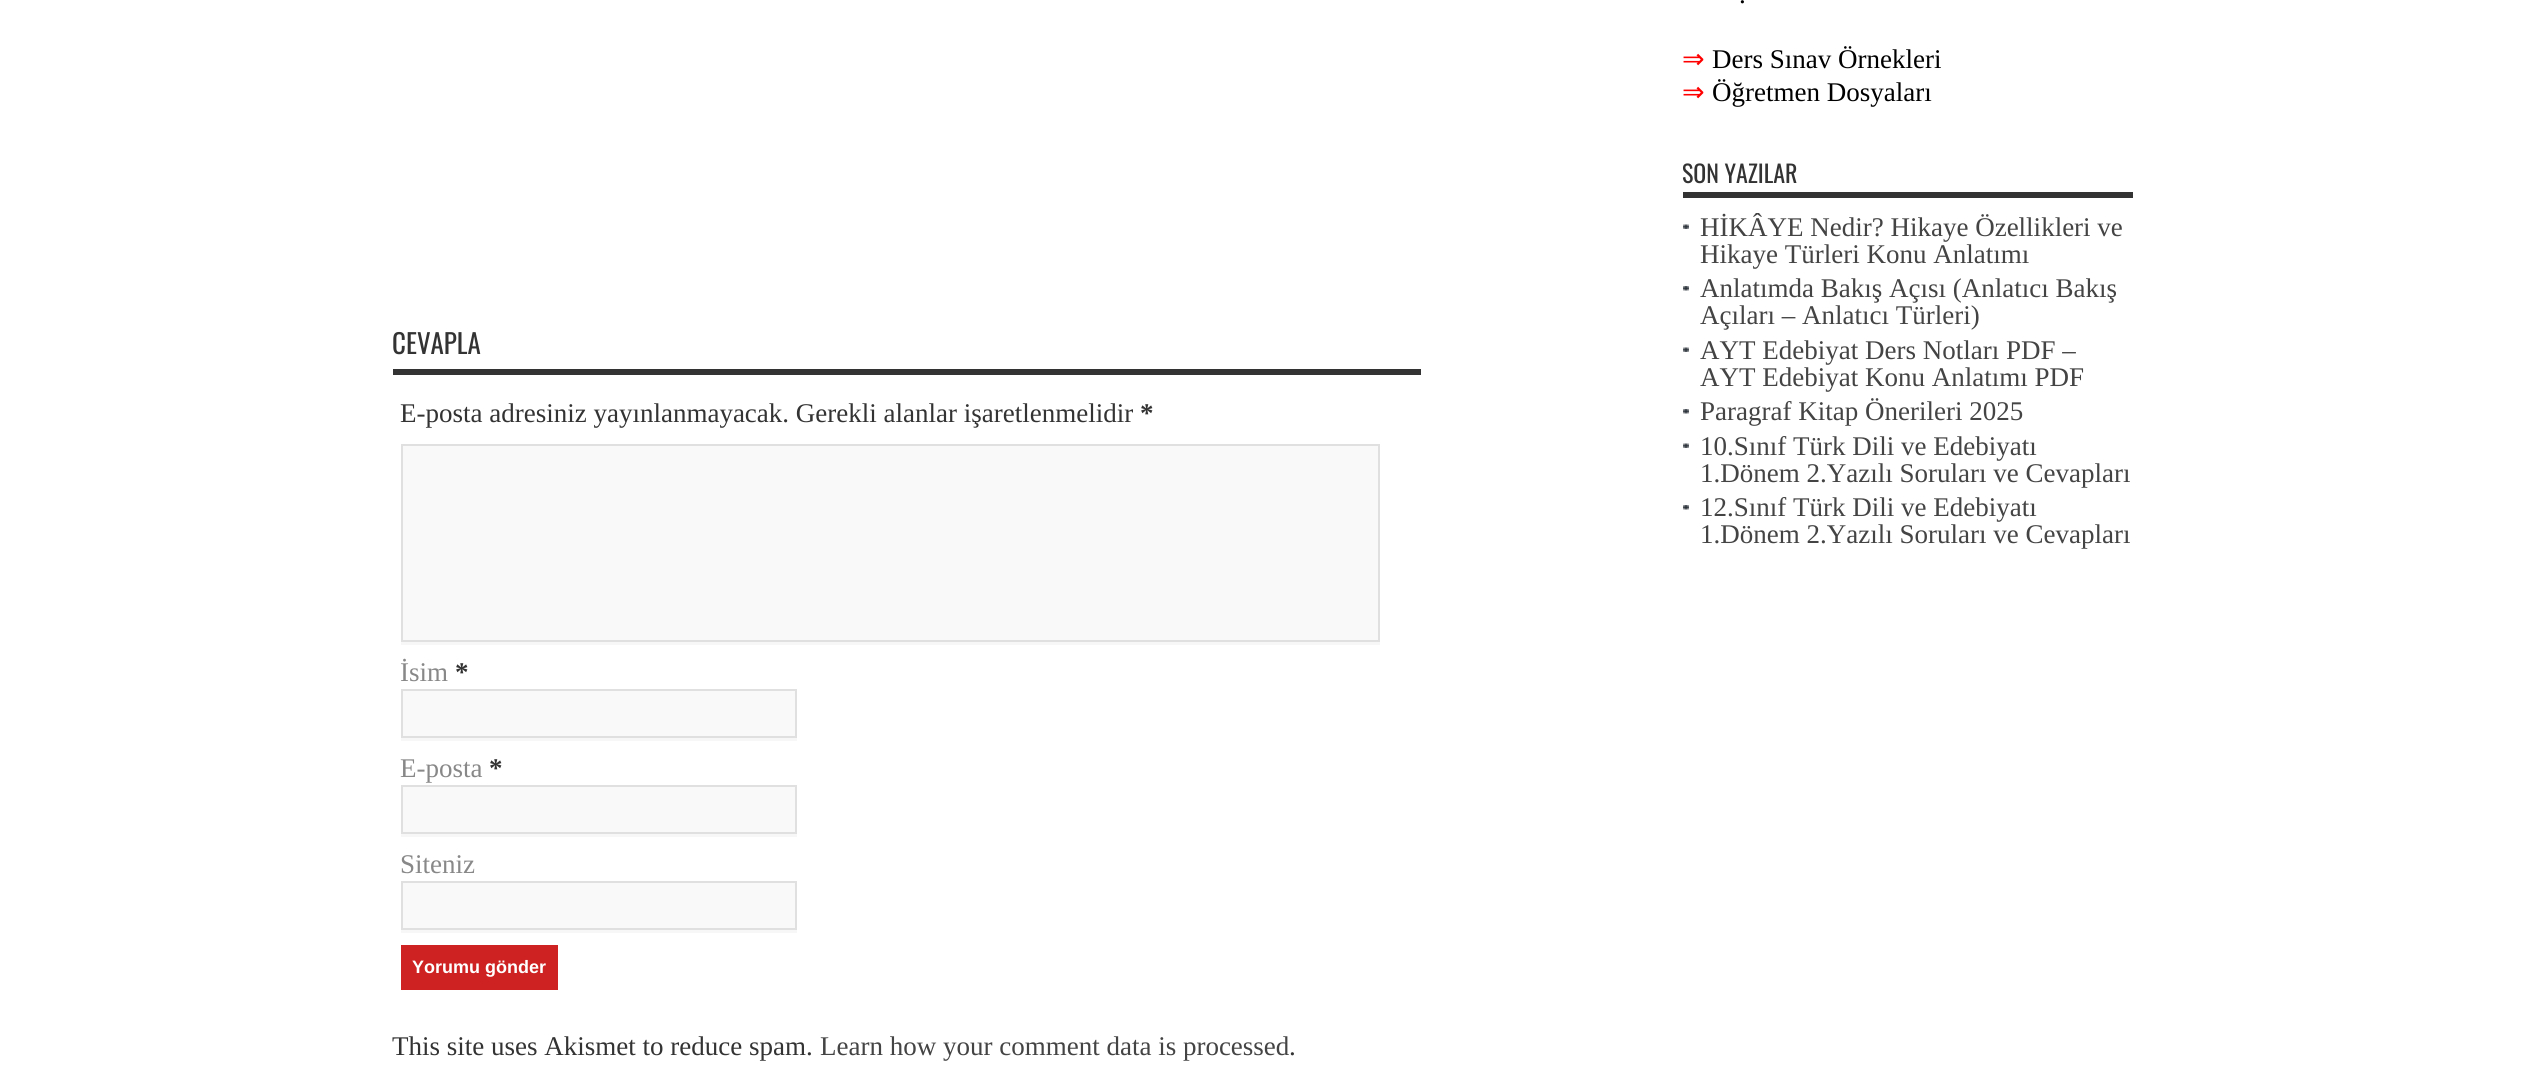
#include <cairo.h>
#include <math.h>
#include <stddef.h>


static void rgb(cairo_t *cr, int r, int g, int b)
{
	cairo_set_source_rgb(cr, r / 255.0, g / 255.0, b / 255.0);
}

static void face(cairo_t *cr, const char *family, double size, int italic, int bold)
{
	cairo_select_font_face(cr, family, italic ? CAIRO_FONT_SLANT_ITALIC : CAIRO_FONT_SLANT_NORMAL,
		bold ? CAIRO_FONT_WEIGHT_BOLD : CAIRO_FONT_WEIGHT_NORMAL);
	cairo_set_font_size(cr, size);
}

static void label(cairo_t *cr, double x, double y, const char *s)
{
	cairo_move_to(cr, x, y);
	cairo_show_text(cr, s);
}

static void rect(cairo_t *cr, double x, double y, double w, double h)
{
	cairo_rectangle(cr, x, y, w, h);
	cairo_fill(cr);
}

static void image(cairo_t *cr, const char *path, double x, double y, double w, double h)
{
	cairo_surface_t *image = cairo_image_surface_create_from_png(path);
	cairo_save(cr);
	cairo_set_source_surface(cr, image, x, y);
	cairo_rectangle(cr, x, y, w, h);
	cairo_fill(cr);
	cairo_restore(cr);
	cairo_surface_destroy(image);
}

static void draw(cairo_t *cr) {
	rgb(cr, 255, 255, 255);
	cairo_paint(cr);
	face(cr, "Liberation Serif", 27, 0, 0);
	rgb(cr, 0, 0, 0);
	label(cr, 1739, 3, ".");
	face(cr, "DejaVu Sans", 27, 0, 0);
	rgb(cr, 255, 0, 0);
	label(cr, 1682, 68, "⇒");
	face(cr, "Liberation Serif", 27, 0, 0);
	rgb(cr, 0, 0, 0);
	label(cr, 1712, 68, "Ders Sınav Örnekleri");
	face(cr, "DejaVu Sans", 27, 0, 0);
	rgb(cr, 255, 0, 0);
	label(cr, 1682, 101, "⇒");
	face(cr, "Liberation Serif", 27, 0, 0);
	rgb(cr, 0, 0, 0);
	label(cr, 1712, 101, "Öğretmen Dosyaları");
	rgb(cr, 51, 51, 51);
	rect(cr, 1683, 192, 450, 6);
	face(cr, "Oswald", 24, 0, 0);
	label(cr, 1682, 183, "SON YAZILAR");
	image(cr, "image0.png", 1683, 224, 6, 5);
	cairo_save(cr);
	cairo_rectangle(cr, 1683, 213, 450, 62);
	cairo_clip(cr);
	face(cr, "Liberation Serif", 27, 0, 0);
	rgb(cr, 68, 68, 68);
	label(cr, 1700, 236, "HİKÂYE Nedir? Hikaye Özellikleri ve");
	cairo_restore(cr);
	face(cr, "Liberation Serif", 27, 0, 0);
	rgb(cr, 68, 68, 68);
	label(cr, 1700, 263, "Hikaye Türleri Konu Anlatımı");
	image(cr, "image1.png", 1683, 286, 6, 5);
	label(cr, 1700, 297, "Anlatımda Bakış Açısı (Anlatıcı Bakış");
	label(cr, 1700, 324, "Açıları – Anlatıcı Türleri)");
	image(cr, "image0.png", 1683, 347, 6, 5);
	label(cr, 1700, 359, "AYT Edebiyat Ders Notları PDF –");
	label(cr, 1700, 386, "AYT Edebiyat Konu Anlatımı PDF");
	image(cr, "image1.png", 1683, 409, 6, 5);
	label(cr, 1700, 420, "Paragraf Kitap Önerileri 2025");
	image(cr, "image0.png", 1683, 443, 6, 5);
	label(cr, 1700, 455, "10.Sınıf Türk Dili ve Edebiyatı");
	label(cr, 1700, 482, "1.Dönem 2.Yazılı Soruları ve Cevapları");
	image(cr, "image1.png", 1683, 505, 6, 5);
	label(cr, 1700, 516, "12.Sınıf Türk Dili ve Edebiyatı");
	label(cr, 1700, 543, "1.Dönem 2.Yazılı Soruları ve Cevapları");
	rgb(cr, 51, 51, 51);
	rect(cr, 393, 369, 1028, 6);
	face(cr, "Oswald", 27, 0, 0);
	label(cr, 392, 354, "CEVAPLA");
	face(cr, "Liberation Serif", 27, 0, 0);
	label(cr, 400, 422, "E-posta adresiniz yayınlanmayacak. Gerekli alanlar işaretlenmelidir");
	face(cr, "Liberation Serif", 27, 0, 1);
	label(cr, 1140, 422, "*");
	rgb(cr, 247, 247, 247);
	rect(cr, 401, 642, 979, 3);
	rgb(cr, 249, 249, 249);
	cairo_rectangle(cr, 402, 445, 977, 196);
	cairo_fill_preserve(cr);
	rgb(cr, 224, 224, 224);
	cairo_stroke(cr);
	face(cr, "Liberation Serif", 27, 0, 0);
	rgb(cr, 136, 136, 136);
	label(cr, 400, 681, "İsim");
	face(cr, "Liberation Serif", 27, 0, 1);
	rgb(cr, 51, 51, 51);
	label(cr, 455, 681, "*");
	rgb(cr, 247, 247, 247);
	cairo_new_path(cr);
	cairo_move_to(cr, 401, 738);
	cairo_line_to(cr, 401, 741);
	cairo_line_to(cr, 797, 741);
	cairo_line_to(cr, 797, 692);
	cairo_line_to(cr, 796, 692);
	cairo_line_to(cr, 796, 738);
	cairo_close_path(cr);
	cairo_fill(cr);
	rgb(cr, 249, 249, 249);
	cairo_rectangle(cr, 402, 690, 394, 47);
	cairo_fill_preserve(cr);
	rgb(cr, 224, 224, 224);
	cairo_stroke(cr);
	face(cr, "Liberation Serif", 27, 0, 0);
	rgb(cr, 136, 136, 136);
	label(cr, 400, 777, "E-posta");
	face(cr, "Liberation Serif", 27, 0, 1);
	rgb(cr, 51, 51, 51);
	label(cr, 489, 777, "*");
	rgb(cr, 247, 247, 247);
	cairo_new_path(cr);
	cairo_move_to(cr, 401, 834);
	cairo_line_to(cr, 401, 837);
	cairo_line_to(cr, 797, 837);
	cairo_line_to(cr, 797, 788);
	cairo_line_to(cr, 796, 788);
	cairo_line_to(cr, 796, 834);
	cairo_close_path(cr);
	cairo_fill(cr);
	rgb(cr, 249, 249, 249);
	cairo_rectangle(cr, 402, 786, 394, 47);
	cairo_fill_preserve(cr);
	rgb(cr, 224, 224, 224);
	cairo_stroke(cr);
	face(cr, "Liberation Serif", 27, 0, 0);
	rgb(cr, 136, 136, 136);
	label(cr, 400, 873, "Siteniz");
	rgb(cr, 247, 247, 247);
	cairo_new_path(cr);
	cairo_move_to(cr, 401, 930);
	cairo_line_to(cr, 401, 933);
	cairo_line_to(cr, 797, 933);
	cairo_line_to(cr, 797, 884);
	cairo_line_to(cr, 796, 884);
	cairo_line_to(cr, 796, 930);
	cairo_close_path(cr);
	cairo_fill(cr);
	rgb(cr, 249, 249, 249);
	cairo_rectangle(cr, 402, 882, 394, 47);
	cairo_fill_preserve(cr);
	rgb(cr, 224, 224, 224);
	cairo_stroke(cr);
	rgb(cr, 205, 33, 34);
	rect(cr, 401, 945, 157, 45);
	face(cr, "Liberation Sans", 18, 0, 1);
	rgb(cr, 255, 255, 255);
	label(cr, 412, 973, "Yorumu gönder");
	face(cr, "Liberation Serif", 27, 0, 0);
	rgb(cr, 51, 51, 51);
	label(cr, 392, 1055, "This site uses Akismet to reduce spam.");
	rgb(cr, 68, 68, 68);
	label(cr, 820, 1055, "Learn how your comment data is processed");
	rgb(cr, 51, 51, 51);
	label(cr, 1289, 1055, ".");
}

int main(void) {
	cairo_surface_t *surface = cairo_image_surface_create(CAIRO_FORMAT_RGB24, 2524, 1090);
	cairo_t *cr = cairo_create(surface);
	cairo_font_options_t *options = cairo_font_options_create();
	cairo_font_options_set_hint_metrics(options, CAIRO_HINT_METRICS_OFF);
	cairo_font_options_set_hint_style(options, CAIRO_HINT_STYLE_NONE);
	cairo_set_font_options(cr, options);
	cairo_set_miter_limit(cr, 4);
	draw(cr);
	cairo_surface_write_to_png(surface, "render.png");
	cairo_font_options_destroy(options);
	cairo_destroy(cr);
	cairo_surface_destroy(surface);
	return 0;
}
